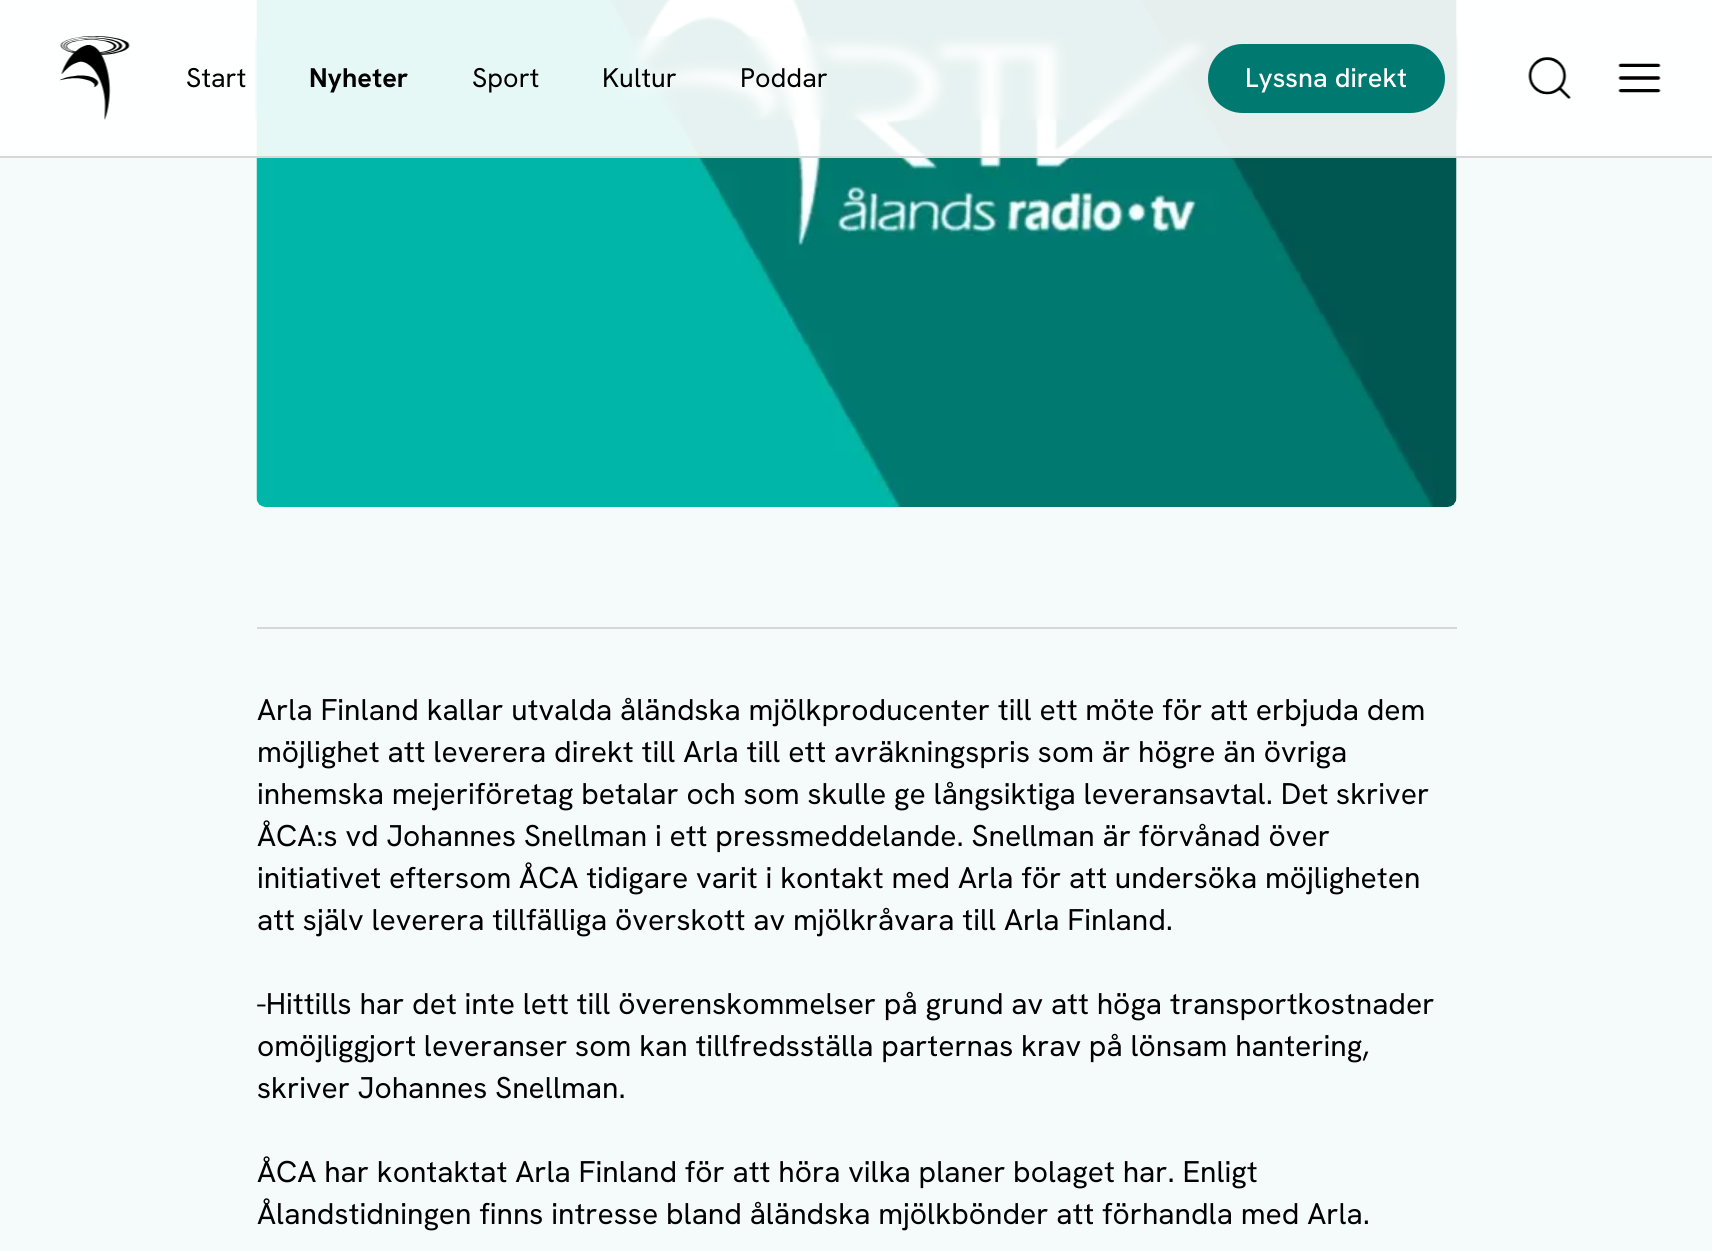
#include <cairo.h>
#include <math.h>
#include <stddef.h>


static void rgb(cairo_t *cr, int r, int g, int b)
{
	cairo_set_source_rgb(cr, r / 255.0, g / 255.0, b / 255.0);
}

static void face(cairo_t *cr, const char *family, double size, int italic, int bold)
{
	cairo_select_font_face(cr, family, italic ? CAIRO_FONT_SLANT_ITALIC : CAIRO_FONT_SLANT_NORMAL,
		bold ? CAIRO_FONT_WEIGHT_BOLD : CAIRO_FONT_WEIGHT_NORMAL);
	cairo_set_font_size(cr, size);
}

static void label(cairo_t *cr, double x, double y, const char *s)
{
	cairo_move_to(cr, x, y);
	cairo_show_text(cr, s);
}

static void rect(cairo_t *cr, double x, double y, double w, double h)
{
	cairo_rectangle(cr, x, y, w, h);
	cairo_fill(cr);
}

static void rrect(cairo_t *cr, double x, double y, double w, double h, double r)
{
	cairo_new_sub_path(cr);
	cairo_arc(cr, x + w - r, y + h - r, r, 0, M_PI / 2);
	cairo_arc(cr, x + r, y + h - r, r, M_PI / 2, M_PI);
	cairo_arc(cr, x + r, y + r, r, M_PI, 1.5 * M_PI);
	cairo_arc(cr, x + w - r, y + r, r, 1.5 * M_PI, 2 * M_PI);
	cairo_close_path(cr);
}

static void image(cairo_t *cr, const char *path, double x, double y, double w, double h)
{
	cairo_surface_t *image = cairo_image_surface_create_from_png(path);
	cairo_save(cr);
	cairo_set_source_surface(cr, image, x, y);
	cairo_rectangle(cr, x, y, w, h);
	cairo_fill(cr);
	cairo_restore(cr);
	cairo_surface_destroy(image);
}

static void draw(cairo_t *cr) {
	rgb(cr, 245, 250, 250);
	cairo_paint(cr);
	image(cr, "image3.png", 255, 0, 1203, 507);
	cairo_set_source_rgba(cr, 1, 1, 1, 0.9);
	rect(cr, 0, 0, 1712, 156);
	rgb(cr, 215, 215, 215);
	rect(cr, 0, 156, 1712, 2);
	image(cr, "image0.png", 59, 36, 71, 84);
	face(cr, "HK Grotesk", 27, 0, 0);
	rgb(cr, 0, 0, 0);
	label(cr, 186, 87, "Start");
	face(cr, "HK Grotesk", 27, 0, 1);
	label(cr, 309, 87, "Nyheter");
	face(cr, "HK Grotesk", 27, 0, 0);
	label(cr, 472, 87, "Sport");
	label(cr, 602, 87, "Kultur");
	label(cr, 740, 87, "Poddar");
	rgb(cr, 0, 122, 112);
	rrect(cr, 1208, 44, 237, 69, 34.5);
	cairo_fill(cr);
	face(cr, "HK Grotesk Medium", 27, 0, 0);
	rgb(cr, 255, 255, 255);
	label(cr, 1245, 87, "Lyssna direkt");
	image(cr, "image1.png", 1528, 57, 43, 42);
	image(cr, "image2.png", 1618, 63, 43, 30);
	rgb(cr, 215, 215, 215);
	rect(cr, 257, 627, 1200, 2);
	face(cr, "HK Grotesk", 30, 0, 0);
	rgb(cr, 0, 0, 0);
	label(cr, 257, 720, "Arla Finland kallar utvalda åländska mjölkproducenter till ett möte för att erbjuda dem");
	label(cr, 257, 762, "möjlighet att leverera direkt till Arla till ett avräkningspris som är högre än övriga");
	label(cr, 257, 804, "inhemska mejeriföretag betalar och som skulle ge långsiktiga leveransavtal. Det skriver");
	label(cr, 257, 846, "ÅCA:s vd Johannes Snellman i ett pressmeddelande. Snellman är förvånad över");
	label(cr, 257, 888, "initiativet eftersom ÅCA tidigare varit i kontakt med Arla för att undersöka möjligheten");
	label(cr, 257, 930, "att själv leverera tillfälliga överskott av mjölkråvara till Arla Finland.");
	label(cr, 257, 1014, "-Hittills har det inte lett till överenskommelser på grund av att höga transportkostnader");
	label(cr, 257, 1056, "omöjliggjort leveranser som kan tillfredsställa parternas krav på lönsam hantering,");
	label(cr, 257, 1098, "skriver Johannes Snellman.");
	label(cr, 257, 1182, "ÅCA har kontaktat Arla Finland för att höra vilka planer bolaget har. Enligt");
	label(cr, 257, 1224, "Ålandstidningen finns intresse bland åländska mjölkbönder att förhandla med Arla.");
}

int main(void) {
	cairo_surface_t *surface = cairo_image_surface_create(CAIRO_FORMAT_RGB24, 1712, 1251);
	cairo_t *cr = cairo_create(surface);
	cairo_font_options_t *options = cairo_font_options_create();
	cairo_font_options_set_hint_metrics(options, CAIRO_HINT_METRICS_OFF);
	cairo_font_options_set_hint_style(options, CAIRO_HINT_STYLE_NONE);
	cairo_set_font_options(cr, options);
	cairo_set_miter_limit(cr, 4);
	draw(cr);
	cairo_surface_write_to_png(surface, "render.png");
	cairo_font_options_destroy(options);
	cairo_destroy(cr);
	cairo_surface_destroy(surface);
	return 0;
}
